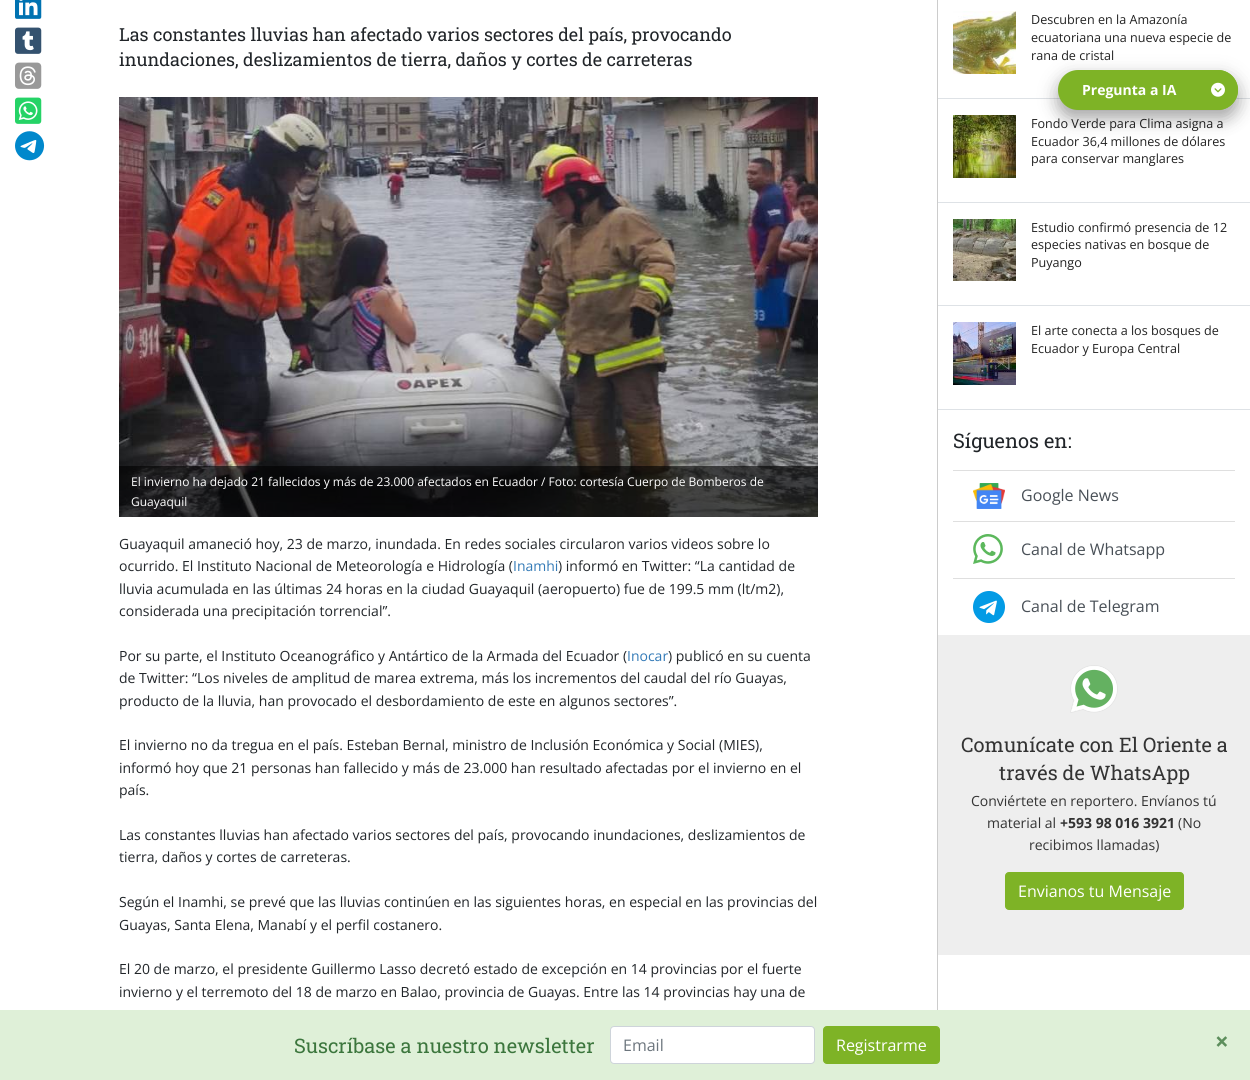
#include <cairo.h>
#include <math.h>
#include <stddef.h>


static void rgb(cairo_t *cr, int r, int g, int b)
{
	cairo_set_source_rgb(cr, r / 255.0, g / 255.0, b / 255.0);
}

static void face(cairo_t *cr, const char *family, double size, int italic, int bold)
{
	cairo_select_font_face(cr, family, italic ? CAIRO_FONT_SLANT_ITALIC : CAIRO_FONT_SLANT_NORMAL,
		bold ? CAIRO_FONT_WEIGHT_BOLD : CAIRO_FONT_WEIGHT_NORMAL);
	cairo_set_font_size(cr, size);
}

static void label(cairo_t *cr, double x, double y, const char *s)
{
	cairo_move_to(cr, x, y);
	cairo_show_text(cr, s);
}

static void rect(cairo_t *cr, double x, double y, double w, double h)
{
	cairo_rectangle(cr, x, y, w, h);
	cairo_fill(cr);
}

static void rrect(cairo_t *cr, double x, double y, double w, double h, double r)
{
	cairo_new_sub_path(cr);
	cairo_arc(cr, x + w - r, y + h - r, r, 0, M_PI / 2);
	cairo_arc(cr, x + r, y + h - r, r, M_PI / 2, M_PI);
	cairo_arc(cr, x + r, y + r, r, M_PI, 1.5 * M_PI);
	cairo_arc(cr, x + w - r, y + r, r, 1.5 * M_PI, 2 * M_PI);
	cairo_close_path(cr);
}

static void soft_shadow(cairo_t *cr, double x, double y, double w, double h, double r, double blur, double alpha)
{
	cairo_push_group_with_content(cr, CAIRO_CONTENT_ALPHA);
	cairo_set_operator(cr, CAIRO_OPERATOR_SOURCE);
	for (int i = 15; i >= -15 && fmin(w, h) + blur * i / 3 > 0; i -= 2) {
		double e = blur * i / 6;
		cairo_set_source_rgba(cr, 0, 0, 0, alpha * erfc((i - 1) / 8.5) / 2);
		rrect(cr, x - e, y - e, w + 2 * e, h + 2 * e, fmax(0, fmin(r + e + blur * .6, fmin(w, h) / 2 + e)));
		cairo_fill(cr);
	}
	cairo_pattern_t *soft = cairo_pop_group(cr);
	cairo_mask(cr, soft);
	cairo_pattern_destroy(soft);
}

static void image(cairo_t *cr, const char *path, double x, double y, double w, double h)
{
	cairo_surface_t *image = cairo_image_surface_create_from_png(path);
	cairo_save(cr);
	cairo_set_source_surface(cr, image, x, y);
	cairo_rectangle(cr, x, y, w, h);
	cairo_fill(cr);
	cairo_restore(cr);
	cairo_surface_destroy(image);
}

static void draw(cairo_t *cr) {
	rgb(cr, 255, 255, 255);
	cairo_paint(cr);
	image(cr, "image0.png", 15, 0, 27, 19);
	image(cr, "image1.png", 15, 27, 27, 27);
	image(cr, "image2.png", 15, 62, 27, 27);
	image(cr, "image3.png", 15, 97, 27, 27);
	image(cr, "image4.png", 15, 131, 30, 30);
	face(cr, "Roboto Slab", 18, 0, 0);
	rgb(cr, 33, 37, 41);
	label(cr, 119, 41, "Las constantes lluvias han afectado varios sectores del país, provocando");
	label(cr, 119, 66, "inundaciones, deslizamientos de tierra, daños y cortes de carreteras");
	image(cr, "image5.png", 119, 97, 699, 420);
	cairo_set_source_rgba(cr, 0, 0, 0, 0.6);
	rect(cr, 119, 466, 699, 51);
	face(cr, "Open Sans", 12, 0, 0);
	rgb(cr, 255, 255, 255);
	label(cr, 131, 486, "El invierno ha dejado 21 fallecidos y más de 23.000 afectados en Ecuador / Foto: cortesía Cuerpo de Bomberos de");
	label(cr, 131, 506, "Guayaquil");
	face(cr, "Open Sans", 14, 0, 0);
	rgb(cr, 33, 37, 41);
	label(cr, 119, 549, "Guayaquil amaneció hoy, 23 de marzo, inundada. En redes sociales circularon varios videos sobre lo");
	label(cr, 119, 571, "ocurrido. El Instituto Nacional de Meteorología e Hidrología (");
	rgb(cr, 51, 122, 183);
	label(cr, 513, 571, "Inamhi");
	rgb(cr, 33, 37, 41);
	label(cr, 558, 571, ") informó en Twitter: “La cantidad de");
	label(cr, 119, 594, "lluvia acumulada en las últimas 24 horas en la ciudad Guayaquil (aeropuerto) fue de 199.5 mm (lt/m2),");
	label(cr, 119, 616, "considerada una precipitación torrencial”.");
	label(cr, 119, 661, "Por su parte, el Instituto Oceanográfico y Antártico de la Armada del Ecuador (");
	rgb(cr, 51, 122, 183);
	label(cr, 627, 661, "Inocar");
	rgb(cr, 33, 37, 41);
	label(cr, 668, 661, ") publicó en su cuenta");
	label(cr, 119, 683, "de Twitter: “Los niveles de amplitud de marea extrema, más los incrementos del caudal del río Guayas,");
	label(cr, 119, 706, "producto de la lluvia, han provocado el desbordamiento de este en algunos sectores”.");
	label(cr, 119, 750, "El invierno no da tregua en el país. Esteban Bernal, ministro de Inclusión Económica y Social (MIES),");
	label(cr, 119, 773, "informó hoy que 21 personas han fallecido y más de 23.000 han resultado afectadas por el invierno en el");
	label(cr, 119, 795, "país.");
	label(cr, 119, 840, "Las constantes lluvias han afectado varios sectores del país, provocando inundaciones, deslizamientos de");
	label(cr, 119, 862, "tierra, daños y cortes de carreteras.");
	label(cr, 119, 907, "Según el Inamhi, se prevé que las lluvias continúen en las siguientes horas, en especial en las provincias del");
	label(cr, 119, 930, "Guayas, Santa Elena, Manabí y el perfil costanero.");
	label(cr, 119, 974, "El 20 de marzo, el presidente Guillermo Lasso decretó estado de excepción en 14 provincias por el fuerte");
	label(cr, 119, 997, "invierno y el terremoto del 18 de marzo en Balao, provincia de Guayas. Entre las 14 provincias hay una de");
	rgb(cr, 204, 204, 204);
	rect(cr, 937, 0, 1, 1010);
	rgb(cr, 222, 226, 230);
	rect(cr, 938, 98, 312, 1);
	image(cr, "image6.png", 953, 11, 63, 63);
	face(cr, "Open Sans", 12.6, 0, 0);
	rgb(cr, 34, 34, 34);
	label(cr, 1031, 24, "Descubren en la Amazonía");
	label(cr, 1031, 42, "ecuatoriana una nueva especie de");
	label(cr, 1031, 60, "rana de cristal");
	rgb(cr, 222, 226, 230);
	rect(cr, 938, 202, 312, 1);
	image(cr, "image7.png", 953, 115, 63, 63);
	rgb(cr, 34, 34, 34);
	label(cr, 1031, 128, "Fondo Verde para Clima asigna a");
	label(cr, 1031, 146, "Ecuador 36,4 millones de dólares");
	label(cr, 1031, 163, "para conservar manglares");
	rgb(cr, 222, 226, 230);
	rect(cr, 938, 305, 312, 1);
	image(cr, "image8.png", 953, 219, 63, 62);
	rgb(cr, 34, 34, 34);
	label(cr, 1031, 232, "Estudio confirmó presencia de 12");
	label(cr, 1031, 249, "especies nativas en bosque de");
	label(cr, 1031, 267, "Puyango");
	rgb(cr, 222, 226, 230);
	rect(cr, 938, 409, 312, 1);
	image(cr, "image9.png", 953, 322, 63, 63);
	rgb(cr, 34, 34, 34);
	label(cr, 1031, 335, "El arte conecta a los bosques de");
	label(cr, 1031, 353, "Ecuador y Europa Central");
	face(cr, "Roboto Slab", 20, 0, 0);
	rgb(cr, 33, 37, 41);
	label(cr, 953, 448, "Síguenos en:");
	rgb(cr, 223, 223, 223);
	rect(cr, 953, 470, 282, 1);
	image(cr, "image10.png", 973, 483, 32, 26);
	face(cr, "Open Sans", 16, 0, 0);
	rgb(cr, 73, 80, 87);
	label(cr, 1021, 501, "Google News");
	rgb(cr, 223, 223, 223);
	rect(cr, 953, 521, 282, 1);
	image(cr, "image11.png", 973, 534, 30, 30);
	rgb(cr, 73, 80, 87);
	label(cr, 1021, 555, "Canal de Whatsapp");
	rgb(cr, 223, 223, 223);
	rect(cr, 953, 578, 282, 1);
	image(cr, "image12.png", 973, 591, 32, 32);
	rgb(cr, 73, 80, 87);
	label(cr, 1021, 612, "Canal de Telegram");
	rgb(cr, 238, 238, 238);
	rect(cr, 938, 635, 312, 320);
	image(cr, "image13.png", 1070, 665, 48, 48);
	face(cr, "Roboto Slab", 20, 0, 0);
	rgb(cr, 51, 51, 51);
	label(cr, 961, 752, "Comunícate con El Oriente a");
	label(cr, 999, 780, "través de WhatsApp");
	face(cr, "Open Sans", 14, 0, 0);
	label(cr, 971, 806, "Conviértete en reportero. Envíanos tú");
	label(cr, 987, 828, "material al");
	face(cr, "Open Sans", 14, 0, 1);
	label(cr, 1060, 828, "+593 98 016 3921");
	face(cr, "Open Sans", 14, 0, 0);
	label(cr, 1178, 828, "(No");
	label(cr, 1029, 850, "recibimos llamadas)");
	rgb(cr, 126, 179, 38);
	rrect(cr, 1005.5, 872.5, 178, 37, 3.5);
	cairo_fill_preserve(cr);
	cairo_set_line_width(cr, 1);
	cairo_stroke(cr);
	face(cr, "Open Sans", 16, 0, 0);
	rgb(cr, 255, 255, 255);
	label(cr, 1018, 897, "Envianos tu Mensaje");
	rgb(cr, 0, 0, 0);
	soft_shadow(cr, 1058, 76, 180, 40, 20, 10, 0.19);
	soft_shadow(cr, 1058, 80, 180, 40, 20, 8, 0.2);
	rgb(cr, 126, 179, 38);
	rrect(cr, 1058, 70, 180, 40, 20);
	cairo_fill(cr);
	face(cr, "Open Sans", 14, 0, 1);
	rgb(cr, 255, 255, 255);
	label(cr, 1082, 95, "Pregunta a IA");
	rgb(cr, 126, 179, 38);
	cairo_new_path(cr);
	cairo_move_to(cr, 1198, 70);
	cairo_line_to(cr, 1218, 70);
	cairo_curve_to(cr, 1229, 70, 1238, 79, 1238, 90);
	cairo_curve_to(cr, 1238, 101, 1229, 110, 1218, 110);
	cairo_line_to(cr, 1198, 110);
	cairo_close_path(cr);
	cairo_fill(cr);
	image(cr, "image14.png", 1211, 82, 14, 15);
	rgb(cr, 223, 240, 216);
	rect(cr, 0, 1010, 1250, 70);
	face(cr, "Roboto Slab", 20, 0, 0);
	rgb(cr, 60, 118, 61);
	label(cr, 294, 1053, "Suscríbase a nuestro newsletter");
	rgb(cr, 255, 255, 255);
	rrect(cr, 610.5, 1026.5, 204, 37, 3.5);
	cairo_fill_preserve(cr);
	rgb(cr, 206, 212, 218);
	cairo_stroke(cr);
	face(cr, "Open Sans", 16, 0, 0);
	rgb(cr, 108, 117, 125);
	label(cr, 623, 1051, "Email");
	rgb(cr, 126, 179, 38);
	rrect(cr, 823.5, 1026.5, 116, 37, 3.5);
	cairo_fill_preserve(cr);
	cairo_stroke(cr);
	rgb(cr, 255, 255, 255);
	label(cr, 836, 1051, "Registrarme");
	face(cr, "Open Sans", 24, 0, 1);
	rgb(cr, 93, 142, 92);
	label(cr, 1215, 1050, "×");
}

int main(void) {
	cairo_surface_t *surface = cairo_image_surface_create(CAIRO_FORMAT_RGB24, 1250, 1080);
	cairo_t *cr = cairo_create(surface);
	cairo_font_options_t *options = cairo_font_options_create();
	cairo_font_options_set_hint_metrics(options, CAIRO_HINT_METRICS_OFF);
	cairo_font_options_set_hint_style(options, CAIRO_HINT_STYLE_NONE);
	cairo_set_font_options(cr, options);
	cairo_set_miter_limit(cr, 4);
	draw(cr);
	cairo_surface_write_to_png(surface, "render.png");
	cairo_font_options_destroy(options);
	cairo_destroy(cr);
	cairo_surface_destroy(surface);
	return 0;
}
